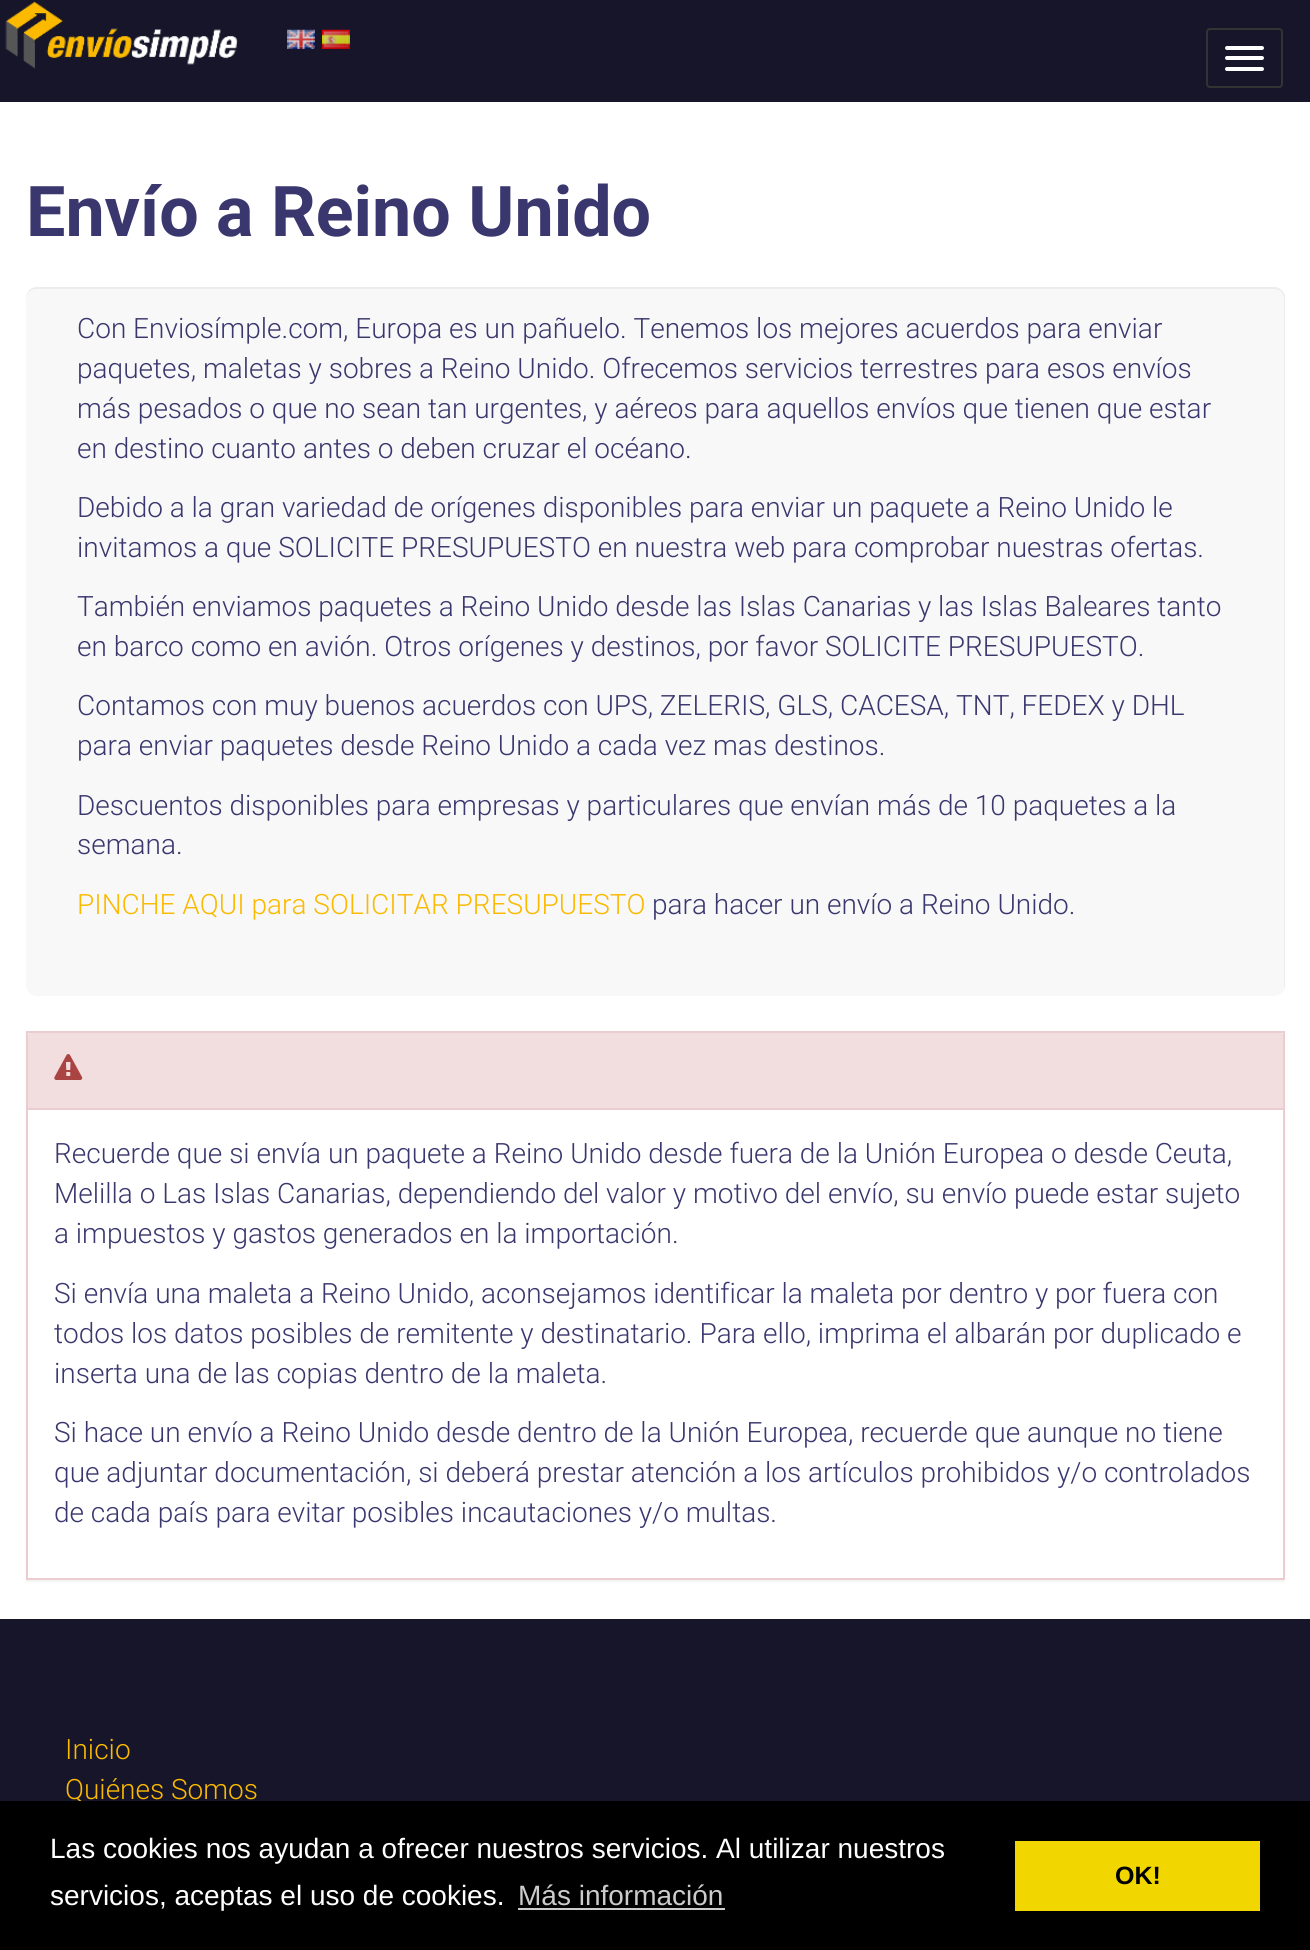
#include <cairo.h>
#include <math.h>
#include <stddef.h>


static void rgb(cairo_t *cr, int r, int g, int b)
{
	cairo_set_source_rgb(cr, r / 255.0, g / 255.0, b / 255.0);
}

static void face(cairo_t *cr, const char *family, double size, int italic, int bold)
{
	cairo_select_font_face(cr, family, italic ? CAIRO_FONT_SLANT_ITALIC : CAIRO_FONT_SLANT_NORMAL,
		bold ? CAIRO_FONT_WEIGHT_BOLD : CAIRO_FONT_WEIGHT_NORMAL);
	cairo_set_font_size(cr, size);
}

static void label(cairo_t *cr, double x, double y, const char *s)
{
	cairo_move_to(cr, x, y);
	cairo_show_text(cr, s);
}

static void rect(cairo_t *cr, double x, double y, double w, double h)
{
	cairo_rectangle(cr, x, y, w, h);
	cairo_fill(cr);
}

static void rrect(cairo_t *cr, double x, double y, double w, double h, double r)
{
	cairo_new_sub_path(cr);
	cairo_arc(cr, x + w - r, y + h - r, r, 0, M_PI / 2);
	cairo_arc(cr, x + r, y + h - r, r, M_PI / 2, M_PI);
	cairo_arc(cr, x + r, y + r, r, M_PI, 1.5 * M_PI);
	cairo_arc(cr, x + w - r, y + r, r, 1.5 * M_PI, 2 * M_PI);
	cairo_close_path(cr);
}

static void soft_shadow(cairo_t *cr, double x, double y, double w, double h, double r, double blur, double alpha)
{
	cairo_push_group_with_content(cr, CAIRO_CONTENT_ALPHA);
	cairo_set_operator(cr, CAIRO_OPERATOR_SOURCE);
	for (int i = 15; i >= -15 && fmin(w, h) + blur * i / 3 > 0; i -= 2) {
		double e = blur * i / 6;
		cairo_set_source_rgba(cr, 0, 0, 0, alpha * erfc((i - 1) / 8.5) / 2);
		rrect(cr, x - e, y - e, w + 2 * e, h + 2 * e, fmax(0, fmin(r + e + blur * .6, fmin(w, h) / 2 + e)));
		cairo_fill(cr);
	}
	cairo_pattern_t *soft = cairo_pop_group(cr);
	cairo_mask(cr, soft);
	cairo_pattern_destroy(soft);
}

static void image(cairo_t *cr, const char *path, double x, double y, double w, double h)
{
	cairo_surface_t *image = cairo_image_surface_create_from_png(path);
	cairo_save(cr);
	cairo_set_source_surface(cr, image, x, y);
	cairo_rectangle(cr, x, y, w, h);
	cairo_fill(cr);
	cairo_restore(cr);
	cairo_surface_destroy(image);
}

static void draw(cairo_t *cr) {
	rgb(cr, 255, 255, 255);
	cairo_paint(cr);
	rgb(cr, 22, 21, 42);
	rect(cr, 0, 0, 1310, 102);
	image(cr, "image0.png", 5, 1, 233, 68);
	image(cr, "image1.png", 287, 29, 28, 20);
	image(cr, "image2.png", 322, 29, 28, 20);
	rrect(cr, 1207, 29, 75, 58, 3);
	rgb(cr, 51, 51, 51);
	cairo_stroke(cr);
	rgb(cr, 255, 255, 255);
	rrect(cr, 1225, 46, 39, 4, 2);
	cairo_fill(cr);
	rrect(cr, 1225, 56, 39, 4, 2);
	cairo_fill(cr);
	rrect(cr, 1225, 67, 39, 4, 2);
	cairo_fill(cr);
	face(cr, "Roboto", 70, 0, 1);
	rgb(cr, 58, 55, 110);
	label(cr, 26, 236, "Envío a Reino Unido");
	rgb(cr, 248, 248, 248);
	rrect(cr, 26, 287, 1259, 709, 11);
	cairo_fill(cr);
	rgb(cr, 236, 236, 236);
	cairo_new_path(cr);
	cairo_move_to(cr, 37, 289);
	cairo_line_to(cr, 1274, 289);
	cairo_curve_to(cr, 1280, 289, 1284, 293, 1284, 299);
	cairo_line_to(cr, 1284, 987);
	cairo_line_to(cr, 1284, 991);
	cairo_curve_to(cr, 1284, 989, 1285, 987, 1285, 985);
	cairo_line_to(cr, 1285, 298);
	cairo_curve_to(cr, 1285, 292, 1280, 287, 1274, 287);
	cairo_line_to(cr, 37, 287);
	cairo_curve_to(cr, 31, 287, 26, 292, 26, 298);
	cairo_line_to(cr, 26, 299);
	cairo_curve_to(cr, 26, 293, 31, 289, 37, 289);
	cairo_close_path(cr);
	cairo_fill(cr);
	face(cr, "Roboto Light", 28, 0, 0);
	rgb(cr, 58, 55, 110);
	label(cr, 77, 338, "Con Enviosímple.com, Europa es un pañuelo. Tenemos los mejores acuerdos para enviar");
	label(cr, 77, 378, "paquetes, maletas y sobres a Reino Unido. Ofrecemos servicios terrestres para esos envíos");
	label(cr, 77, 418, "más pesados o que no sean tan urgentes, y aéreos para aquellos envíos que tienen que estar");
	label(cr, 77, 458, "en destino cuanto antes o deben cruzar el océano.");
	label(cr, 77, 517, "Debido a la gran variedad de orígenes disponibles para enviar un paquete a Reino Unido le");
	label(cr, 77, 557, "invitamos a que SOLICITE PRESUPUESTO en nuestra web para comprobar nuestras ofertas.");
	label(cr, 77, 616, "También enviamos paquetes a Reino Unido desde las Islas Canarias y las Islas Baleares tanto");
	label(cr, 77, 656, "en barco como en avión. Otros orígenes y destinos, por favor SOLICITE PRESUPUESTO.");
	label(cr, 77, 715, "Contamos con muy buenos acuerdos con UPS, ZELERIS, GLS, CACESA, TNT, FEDEX y DHL");
	label(cr, 77, 755, "para enviar paquetes desde Reino Unido a cada vez mas destinos.");
	label(cr, 77, 815, "Descuentos disponibles para empresas y particulares que envían más de 10 paquetes a la");
	label(cr, 77, 854, "semana.");
	rgb(cr, 251, 185, 0);
	label(cr, 77, 914, "PINCHE AQUI para SOLICITAR PRESUPUESTO");
	rgb(cr, 58, 55, 110);
	label(cr, 652, 914, "para hacer un envío a Reino Unido.");
	rgb(cr, 0, 0, 0);
	soft_shadow(cr, 26, 1033, 1259, 549, 0, 1, 0.05);
	rgb(cr, 255, 255, 255);
	cairo_rectangle(cr, 27, 1032, 1257, 547);
	cairo_fill_preserve(cr);
	rgb(cr, 235, 204, 209);
	cairo_stroke(cr);
	rgb(cr, 242, 222, 222);
	cairo_new_path(cr);
	cairo_move_to(cr, 30, 1033);
	cairo_line_to(cr, 1281, 1033);
	cairo_curve_to(cr, 1282, 1033, 1283, 1034, 1283, 1035);
	cairo_line_to(cr, 1283, 1110);
	cairo_line_to(cr, 28, 1110);
	cairo_line_to(cr, 28, 1035);
	cairo_curve_to(cr, 28, 1034, 29, 1033, 30, 1033);
	cairo_close_path(cr);
	cairo_fill(cr);
	rgb(cr, 235, 204, 209);
	rect(cr, 28, 1108, 1255, 2);
	image(cr, "image3.png", 54, 1054, 29, 26);
	rgb(cr, 58, 55, 110);
	label(cr, 54, 1163, "Recuerde que si envía un paquete a Reino Unido desde fuera de la Unión Europea o desde Ceuta,");
	label(cr, 54, 1203, "Melilla o Las Islas Canarias, dependiendo del valor y motivo del envío, su envío puede estar sujeto");
	label(cr, 54, 1243, "a impuestos y gastos generados en la importación.");
	label(cr, 54, 1303, "Si envía una maleta a Reino Unido, aconsejamos identificar la maleta por dentro y por fuera con");
	label(cr, 54, 1343, "todos los datos posibles de remitente y destinatario. Para ello, imprima el albarán por duplicado e");
	label(cr, 54, 1383, "inserta una de las copias dentro de la maleta.");
	label(cr, 54, 1442, "Si hace un envío a Reino Unido desde dentro de la Unión Europea, recuerde que aunque no tiene");
	label(cr, 54, 1482, "que adjuntar documentación, si deberá prestar atención a los artículos prohibidos y/o controlados");
	label(cr, 54, 1522, "de cada país para evitar posibles incautaciones y/o multas.");
	rgb(cr, 22, 21, 42);
	rect(cr, 0, 1619, 1310, 182);
	rgb(cr, 251, 185, 0);
	label(cr, 65, 1759, "Inicio");
	label(cr, 65, 1799, "Quiénes Somos");
	rgb(cr, 0, 0, 0);
	rect(cr, 0, 1801, 1310, 149);
	face(cr, "Liberation Sans", 28, 0, 0);
	rgb(cr, 255, 255, 255);
	label(cr, 50, 1858, "Las cookies nos ayudan a ofrecer nuestros servicios. Al utilizar nuestros");
	label(cr, 50, 1905, "servicios, aceptas el uso de cookies.");
	rgb(cr, 204, 204, 204);
	label(cr, 518, 1905, "Más información");
	rect(cr, 518, 1908, 207, 2);
	rgb(cr, 241, 214, 0);
	rect(cr, 1015, 1841, 245, 70);
	face(cr, "Liberation Sans", 25, 0, 1);
	rgb(cr, 0, 0, 0);
	label(cr, 1115, 1884, "OK!");
}

int main(void) {
	cairo_surface_t *surface = cairo_image_surface_create(CAIRO_FORMAT_RGB24, 1310, 1950);
	cairo_t *cr = cairo_create(surface);
	cairo_font_options_t *options = cairo_font_options_create();
	cairo_font_options_set_hint_metrics(options, CAIRO_HINT_METRICS_OFF);
	cairo_font_options_set_hint_style(options, CAIRO_HINT_STYLE_NONE);
	cairo_set_font_options(cr, options);
	cairo_set_miter_limit(cr, 4);
	draw(cr);
	cairo_surface_write_to_png(surface, "render.png");
	cairo_font_options_destroy(options);
	cairo_destroy(cr);
	cairo_surface_destroy(surface);
	return 0;
}
